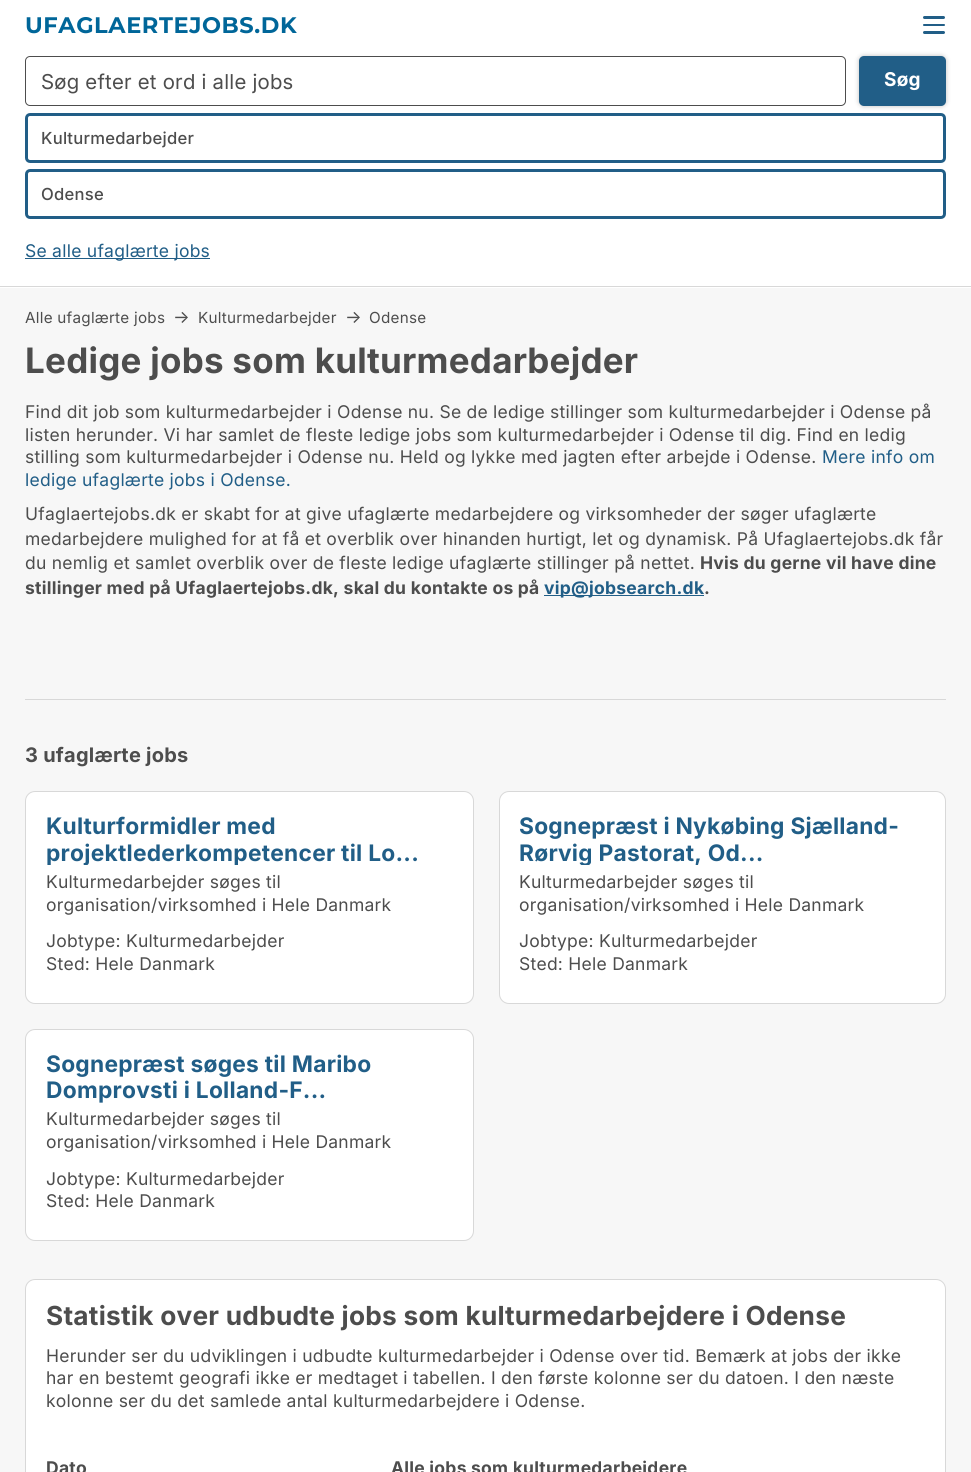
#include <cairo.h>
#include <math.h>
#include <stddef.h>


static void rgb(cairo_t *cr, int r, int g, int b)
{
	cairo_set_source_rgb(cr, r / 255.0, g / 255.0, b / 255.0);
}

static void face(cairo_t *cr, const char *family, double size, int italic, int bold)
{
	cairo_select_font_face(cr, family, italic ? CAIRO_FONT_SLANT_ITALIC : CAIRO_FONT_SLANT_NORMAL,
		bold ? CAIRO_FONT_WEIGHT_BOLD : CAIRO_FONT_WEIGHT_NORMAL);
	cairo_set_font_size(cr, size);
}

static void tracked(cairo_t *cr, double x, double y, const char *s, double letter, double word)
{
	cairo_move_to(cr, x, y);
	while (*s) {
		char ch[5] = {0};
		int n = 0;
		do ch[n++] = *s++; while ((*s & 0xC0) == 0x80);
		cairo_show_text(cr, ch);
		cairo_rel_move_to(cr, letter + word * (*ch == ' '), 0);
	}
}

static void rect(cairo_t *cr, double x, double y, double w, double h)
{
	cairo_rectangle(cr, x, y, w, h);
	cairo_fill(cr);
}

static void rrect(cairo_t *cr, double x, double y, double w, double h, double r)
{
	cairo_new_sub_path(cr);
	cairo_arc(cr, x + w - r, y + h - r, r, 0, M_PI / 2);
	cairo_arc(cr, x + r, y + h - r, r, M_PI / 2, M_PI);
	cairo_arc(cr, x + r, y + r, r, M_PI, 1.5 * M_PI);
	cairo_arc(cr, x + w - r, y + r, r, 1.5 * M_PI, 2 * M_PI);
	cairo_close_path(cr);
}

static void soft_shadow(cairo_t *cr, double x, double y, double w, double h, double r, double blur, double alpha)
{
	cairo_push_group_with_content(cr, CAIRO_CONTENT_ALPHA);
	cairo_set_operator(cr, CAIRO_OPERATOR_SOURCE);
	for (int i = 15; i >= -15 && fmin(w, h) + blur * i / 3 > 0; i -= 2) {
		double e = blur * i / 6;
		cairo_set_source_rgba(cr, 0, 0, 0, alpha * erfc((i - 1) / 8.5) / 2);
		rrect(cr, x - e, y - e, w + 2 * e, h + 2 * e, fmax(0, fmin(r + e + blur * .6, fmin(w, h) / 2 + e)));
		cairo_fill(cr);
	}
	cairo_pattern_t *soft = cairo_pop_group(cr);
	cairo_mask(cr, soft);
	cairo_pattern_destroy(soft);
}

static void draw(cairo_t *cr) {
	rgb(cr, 255, 255, 255);
	cairo_paint(cr);
	face(cr, "Montserrat", 22.5, 0, 1);
	rgb(cr, 0, 102, 153);
	tracked(cr, 25, 33, "UFAGLAERTEJOBS.DK", 0.6, 0);
	rgb(cr, 33, 94, 135);
	rrect(cr, 923, 16, 22, 3, 1.5);
	cairo_fill(cr);
	rrect(cr, 923, 24, 22, 2, 1);
	cairo_fill(cr);
	rrect(cr, 923, 31, 22, 3, 1.5);
	cairo_fill(cr);
	rgb(cr, 247, 247, 247);
	rect(cr, 0, 288, 971, 1184);
	rgb(cr, 216, 216, 216);
	rect(cr, 0, 286, 971, 1);
	rrect(cr, 25.5, 56.5, 820, 49, 4.5);
	rgb(cr, 77, 77, 77);
	cairo_set_line_width(cr, 1);
	cairo_stroke(cr);
	face(cr, "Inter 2", 20.5, 0, 0);
	tracked(cr, 41, 89, "Søg efter et ord i alle jobs", 0.25, 0);
	rgb(cr, 0, 0, 0);
	soft_shadow(cr, 859, 56, 87, 50, 5, 2.5, 0.25);
	rgb(cr, 33, 94, 135);
	rrect(cr, 859, 56, 87, 50, 5);
	cairo_fill(cr);
	face(cr, "Inter", 19, 0, 1);
	rgb(cr, 255, 255, 255);
	tracked(cr, 884, 86, "Søg", 0.25, 0);
	rrect(cr, 26.5, 114.5, 918, 47, 3.5);
	rgb(cr, 33, 94, 135);
	cairo_set_line_width(cr, 3);
	cairo_stroke(cr);
	face(cr, "Inter Medium", 16.6, 0, 0);
	rgb(cr, 77, 77, 77);
	tracked(cr, 41, 144, "Kulturmedarbejder", 0.25, 0);
	rrect(cr, 26.5, 170.5, 918, 47, 3.5);
	rgb(cr, 33, 94, 135);
	cairo_stroke(cr);
	rgb(cr, 77, 77, 77);
	tracked(cr, 41, 200, "Odense", 0.25, 0);
	rgb(cr, 33, 94, 135);
	rect(cr, 25, 258, 185, 1);
	face(cr, "Inter", 17.5, 0, 0);
	tracked(cr, 25, 257, "Se alle ufaglærte jobs", 0.25, 0);
	face(cr, "Inter", 15.25, 0, 0);
	rgb(cr, 77, 77, 77);
	tracked(cr, 25, 323, "Alle ufaglærte jobs", 0.25, 0);
	face(cr, "Inter", 17.5, 0, 0);
	tracked(cr, 173, 323, "→", 0.25, 0);
	face(cr, "Inter", 15.25, 0, 0);
	tracked(cr, 198, 323, "Kulturmedarbejder", 0.25, 0);
	face(cr, "Inter", 17.5, 0, 0);
	tracked(cr, 345, 323, "→", 0.25, 0);
	face(cr, "Inter", 15.25, 0, 0);
	tracked(cr, 369, 323, "Odense", 0.25, 0);
	face(cr, "Inter", 35, 0, 1);
	tracked(cr, 25, 373, "Ledige jobs som kulturmedarbejder", 0.25, 0);
	face(cr, "Inter", 17.5, 0, 0);
	tracked(cr, 25, 418, "Find dit job som kulturmedarbejder i Odense nu. Se de ledige stillinger som kulturmedarbejder i Odense på", 0.25, 0);
	tracked(cr, 25, 441, "listen herunder. Vi har samlet de fleste ledige jobs som kulturmedarbejder i Odense til dig. Find en ledig", 0.25, 0);
	tracked(cr, 25, 463, "stilling som kulturmedarbejder i Odense nu. Held og lykke med jagten efter arbejde i Odense.", 0.25, 0);
	rgb(cr, 33, 94, 135);
	tracked(cr, 822, 463, "Mere info om", 0.25, 0);
	tracked(cr, 25, 486, "ledige ufaglærte jobs i Odense.", 0.25, 0);
	rgb(cr, 77, 77, 77);
	tracked(cr, 25, 520, "Ufaglaertejobs.dk er skabt for at give ufaglærte medarbejdere og virksomheder der søger ufaglærte", 0.25, 0);
	tracked(cr, 25, 545, "medarbejdere mulighed for at få et overblik over hinanden hurtigt, let og dynamisk. På Ufaglaertejobs.dk får", 0.25, 0);
	tracked(cr, 25, 569, "du nemlig et samlet overblik over de fleste ledige ufaglærte stillinger på nettet.", 0.25, 0);
	face(cr, "Inter", 17.5, 0, 1);
	tracked(cr, 700, 569, "Hvis du gerne vil have dine", 0.25, 0);
	tracked(cr, 25, 594, "stillinger med på Ufaglaertejobs.dk, skal du kontakte os på", 0.25, 0);
	rgb(cr, 33, 94, 135);
	rect(cr, 544, 595, 160, 1);
	tracked(cr, 544, 594, "vip@jobsearch.dk", 0.25, 0);
	rgb(cr, 77, 77, 77);
	tracked(cr, 704, 594, ".", 0.25, 0);
	rgb(cr, 216, 216, 216);
	rect(cr, 25, 699, 921, 1);
	face(cr, "Inter", 20, 0, 1);
	rgb(cr, 77, 77, 77);
	tracked(cr, 25, 762, "3 ufaglærte jobs", 0.25, 0);
	rgb(cr, 255, 255, 255);
	rrect(cr, 25.5, 791.5, 448, 212, 9.5);
	cairo_fill_preserve(cr);
	rgb(cr, 216, 216, 216);
	cairo_set_line_width(cr, 1);
	cairo_stroke(cr);
	face(cr, "Inter", 22.75, 0, 1);
	rgb(cr, 33, 94, 135);
	tracked(cr, 46, 834, "Kulturformidler med", 0.25, 0);
	cairo_save(cr);
	cairo_rectangle(cr, 46, 813, 407, 52);
	cairo_clip(cr);
	tracked(cr, 46, 861, "projektlederkompetencer til Lo...", 0.25, 0);
	cairo_restore(cr);
	face(cr, "Inter", 17.5, 0, 0);
	rgb(cr, 77, 77, 77);
	tracked(cr, 46, 888, "Kulturmedarbejder søges til", 0.25, 0);
	tracked(cr, 46, 911, "organisation/virksomhed i Hele Danmark", 0.25, 0);
	tracked(cr, 46, 947, "Jobtype: Kulturmedarbejder", 0.25, 0);
	tracked(cr, 46, 970, "Sted: Hele Danmark", 0.25, 0);
	rgb(cr, 255, 255, 255);
	rrect(cr, 499.5, 791.5, 446, 212, 9.5);
	cairo_fill_preserve(cr);
	rgb(cr, 216, 216, 216);
	cairo_stroke(cr);
	face(cr, "Inter", 22.75, 0, 1);
	rgb(cr, 33, 94, 135);
	tracked(cr, 519, 834, "Sognepræst i Nykøbing Sjælland-", 0.25, 0);
	cairo_save(cr);
	cairo_rectangle(cr, 520, 813, 405, 52);
	cairo_clip(cr);
	tracked(cr, 519, 861, "Rørvig Pastorat, Od...", 0.25, 0);
	cairo_restore(cr);
	face(cr, "Inter", 17.5, 0, 0);
	rgb(cr, 77, 77, 77);
	tracked(cr, 519, 888, "Kulturmedarbejder søges til", 0.25, 0);
	tracked(cr, 519, 911, "organisation/virksomhed i Hele Danmark", 0.25, 0);
	tracked(cr, 519, 947, "Jobtype: Kulturmedarbejder", 0.25, 0);
	tracked(cr, 519, 970, "Sted: Hele Danmark", 0.25, 0);
	rgb(cr, 255, 255, 255);
	rrect(cr, 25.5, 1029.5, 448, 211, 9.5);
	cairo_fill_preserve(cr);
	rgb(cr, 216, 216, 216);
	cairo_stroke(cr);
	face(cr, "Inter", 22.75, 0, 1);
	rgb(cr, 33, 94, 135);
	tracked(cr, 46, 1072, "Sognepræst søges til Maribo", 0.25, 0);
	tracked(cr, 46, 1098, "Domprovsti i Lolland-F...", 0.25, 0);
	face(cr, "Inter", 17.5, 0, 0);
	rgb(cr, 77, 77, 77);
	tracked(cr, 46, 1125, "Kulturmedarbejder søges til", 0.25, 0);
	tracked(cr, 46, 1148, "organisation/virksomhed i Hele Danmark", 0.25, 0);
	tracked(cr, 46, 1185, "Jobtype: Kulturmedarbejder", 0.25, 0);
	tracked(cr, 46, 1207, "Sted: Hele Danmark", 0.25, 0);
	rgb(cr, 255, 255, 255);
	rrect(cr, 25.5, 1279.5, 920, 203, 9.5);
	cairo_fill_preserve(cr);
	rgb(cr, 216, 216, 216);
	cairo_stroke(cr);
	face(cr, "Inter", 26.25, 0, 1);
	rgb(cr, 77, 77, 77);
	tracked(cr, 46, 1325, "Statistik over udbudte jobs som kulturmedarbejdere i Odense", 0.25, 0);
	face(cr, "Inter", 17.5, 0, 0);
	tracked(cr, 46, 1362, "Herunder ser du udviklingen i udbudte kulturmedarbejder i Odense over tid. Bemærk at jobs der ikke", 0.25, 0);
	tracked(cr, 46, 1384, "har en bestemt geografi ikke er medtaget i tabellen. I den første kolonne ser du datoen. I den næste", 0.25, 0);
	tracked(cr, 46, 1407, "kolonne ser du det samlede antal kulturmedarbejdere i Odense.", 0.25, 0);
	face(cr, "Inter", 17.5, 0, 1);
	tracked(cr, 46, 1474, "Dato", 0.25, 0);
	tracked(cr, 391, 1474, "Alle jobs som kulturmedarbejdere", 0.25, 0);
}

int main(void) {
	cairo_surface_t *surface = cairo_image_surface_create(CAIRO_FORMAT_RGB24, 971, 1472);
	cairo_t *cr = cairo_create(surface);
	cairo_font_options_t *options = cairo_font_options_create();
	cairo_font_options_set_hint_metrics(options, CAIRO_HINT_METRICS_OFF);
	cairo_font_options_set_hint_style(options, CAIRO_HINT_STYLE_NONE);
	cairo_set_font_options(cr, options);
	cairo_set_miter_limit(cr, 4);
	draw(cr);
	cairo_surface_write_to_png(surface, "render.png");
	cairo_font_options_destroy(options);
	cairo_destroy(cr);
	cairo_surface_destroy(surface);
	return 0;
}
